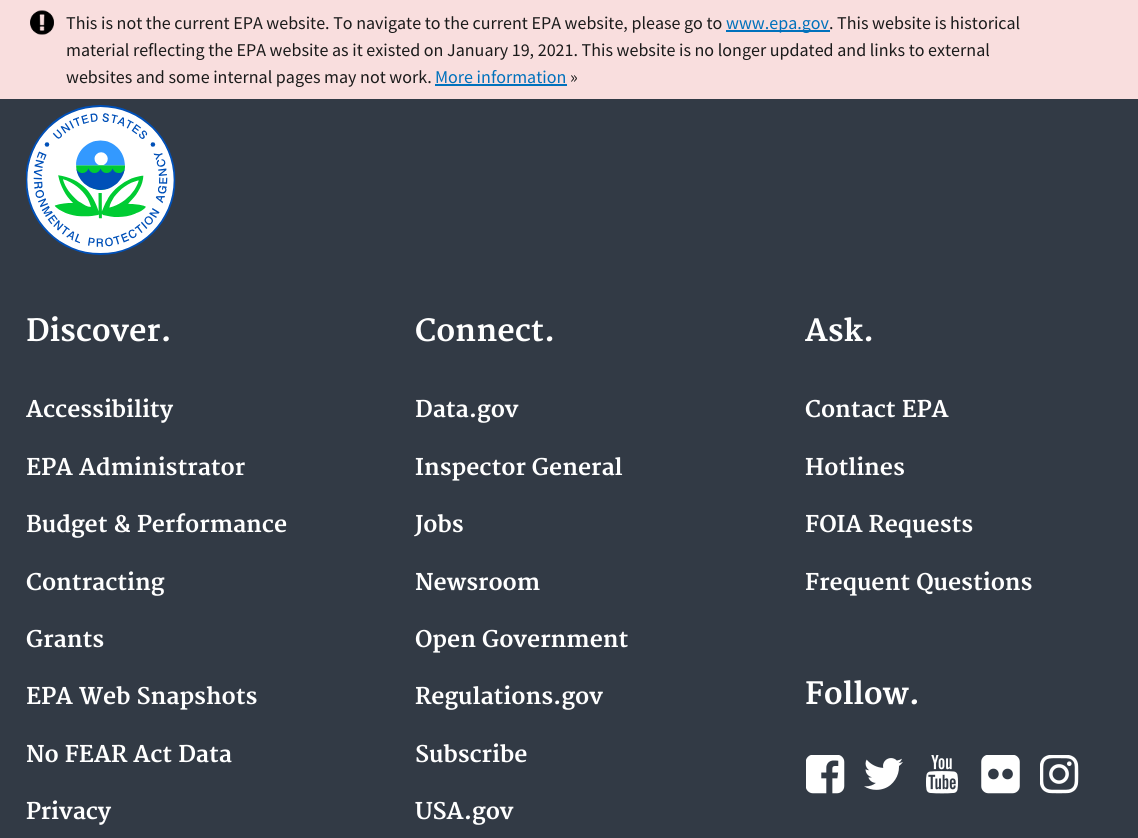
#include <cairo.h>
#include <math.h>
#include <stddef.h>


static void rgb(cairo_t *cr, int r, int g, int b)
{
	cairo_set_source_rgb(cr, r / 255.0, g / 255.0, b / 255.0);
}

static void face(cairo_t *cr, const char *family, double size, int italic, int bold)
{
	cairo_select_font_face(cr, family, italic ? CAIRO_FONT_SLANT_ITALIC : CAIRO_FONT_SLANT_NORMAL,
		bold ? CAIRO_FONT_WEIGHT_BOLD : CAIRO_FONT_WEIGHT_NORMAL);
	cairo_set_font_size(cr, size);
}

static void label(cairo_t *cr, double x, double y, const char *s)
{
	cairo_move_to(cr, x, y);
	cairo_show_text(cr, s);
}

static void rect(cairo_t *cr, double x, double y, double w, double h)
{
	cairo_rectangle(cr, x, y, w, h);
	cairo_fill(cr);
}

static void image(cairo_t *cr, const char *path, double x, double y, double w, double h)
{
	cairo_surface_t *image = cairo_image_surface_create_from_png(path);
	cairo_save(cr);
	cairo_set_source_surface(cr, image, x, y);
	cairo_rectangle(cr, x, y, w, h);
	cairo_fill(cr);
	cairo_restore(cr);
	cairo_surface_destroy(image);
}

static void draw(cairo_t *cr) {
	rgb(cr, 50, 58, 69);
	cairo_paint(cr);
	rgb(cr, 249, 222, 222);
	rect(cr, 0, 0, 1138, 99);
	image(cr, "image0.png", 30, 10, 24, 25);
	face(cr, "Source Sans Pro", 18, 0, 0);
	rgb(cr, 27, 27, 27);
	label(cr, 66, 29, "This is not the current EPA website. To navigate to the current EPA website, please go to");
	rgb(cr, 0, 113, 188);
	rect(cr, 726, 30, 104, 2);
	label(cr, 726, 29, "www.epa.gov");
	rgb(cr, 27, 27, 27);
	label(cr, 829, 29, ". This website is historical");
	label(cr, 66, 56, "material reflecting the EPA website as it existed on January 19, 2021. This website is no longer updated and links to external");
	label(cr, 66, 83, "websites and some internal pages may not work.");
	rgb(cr, 0, 113, 188);
	label(cr, 435, 83, "More information");
	rect(cr, 435, 84, 132, 2);
	rgb(cr, 27, 27, 27);
	label(cr, 570, 83, "»");
	image(cr, "image1.png", 26, 105, 150, 150);
	face(cr, "Merriweather", 30, 0, 1);
	rgb(cr, 255, 255, 255);
	label(cr, 26, 341, "Discover.");
	face(cr, "Merriweather", 22.5, 0, 1);
	label(cr, 26, 417, "Accessibility");
	label(cr, 26, 475, "EPA Administrator");
	label(cr, 26, 532, "Budget & Performance");
	label(cr, 26, 590, "Contracting");
	label(cr, 26, 647, "Grants");
	label(cr, 26, 704, "EPA Web Snapshots");
	label(cr, 26, 762, "No FEAR Act Data");
	label(cr, 26, 819, "Privacy");
	face(cr, "Merriweather", 30, 0, 1);
	label(cr, 415, 341, "Connect.");
	face(cr, "Merriweather", 22.5, 0, 1);
	label(cr, 415, 417, "Data.gov");
	label(cr, 415, 475, "Inspector General");
	label(cr, 415, 532, "Jobs");
	label(cr, 415, 590, "Newsroom");
	label(cr, 415, 647, "Open Government");
	label(cr, 415, 704, "Regulations.gov");
	label(cr, 415, 762, "Subscribe");
	label(cr, 415, 819, "USA.gov");
	face(cr, "Merriweather", 30, 0, 1);
	label(cr, 805, 341, "Ask.");
	face(cr, "Merriweather", 22.5, 0, 1);
	label(cr, 805, 417, "Contact EPA");
	label(cr, 805, 475, "Hotlines");
	label(cr, 805, 532, "FOIA Requests");
	label(cr, 805, 590, "Frequent Questions");
	face(cr, "Merriweather", 30, 0, 1);
	label(cr, 805, 704, "Follow.");
	image(cr, "image2.png", 806, 755, 39, 39);
	image(cr, "image3.png", 864, 758, 39, 32);
	image(cr, "image4.png", 926, 755, 32, 39);
	image(cr, "image5.png", 981, 755, 39, 39);
	image(cr, "image6.png", 1040, 755, 39, 39);
}

int main(void) {
	cairo_surface_t *surface = cairo_image_surface_create(CAIRO_FORMAT_RGB24, 1138, 838);
	cairo_t *cr = cairo_create(surface);
	cairo_font_options_t *options = cairo_font_options_create();
	cairo_font_options_set_hint_metrics(options, CAIRO_HINT_METRICS_OFF);
	cairo_font_options_set_hint_style(options, CAIRO_HINT_STYLE_NONE);
	cairo_set_font_options(cr, options);
	cairo_set_miter_limit(cr, 4);
	draw(cr);
	cairo_surface_write_to_png(surface, "render.png");
	cairo_font_options_destroy(options);
	cairo_destroy(cr);
	cairo_surface_destroy(surface);
	return 0;
}
